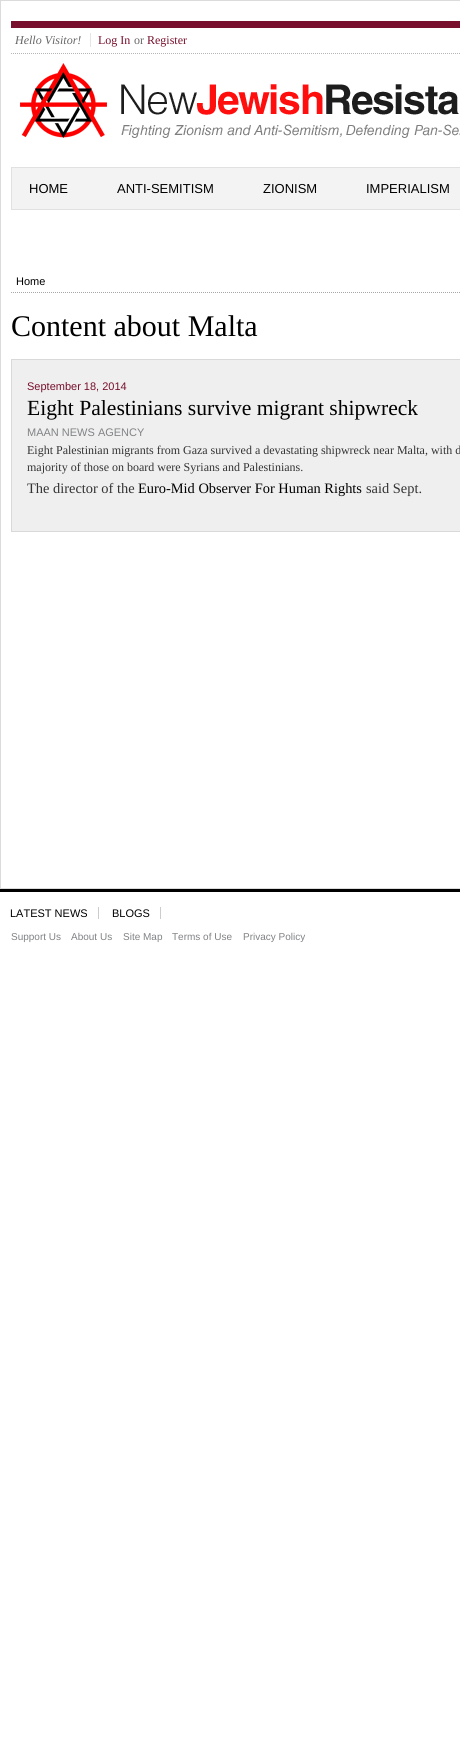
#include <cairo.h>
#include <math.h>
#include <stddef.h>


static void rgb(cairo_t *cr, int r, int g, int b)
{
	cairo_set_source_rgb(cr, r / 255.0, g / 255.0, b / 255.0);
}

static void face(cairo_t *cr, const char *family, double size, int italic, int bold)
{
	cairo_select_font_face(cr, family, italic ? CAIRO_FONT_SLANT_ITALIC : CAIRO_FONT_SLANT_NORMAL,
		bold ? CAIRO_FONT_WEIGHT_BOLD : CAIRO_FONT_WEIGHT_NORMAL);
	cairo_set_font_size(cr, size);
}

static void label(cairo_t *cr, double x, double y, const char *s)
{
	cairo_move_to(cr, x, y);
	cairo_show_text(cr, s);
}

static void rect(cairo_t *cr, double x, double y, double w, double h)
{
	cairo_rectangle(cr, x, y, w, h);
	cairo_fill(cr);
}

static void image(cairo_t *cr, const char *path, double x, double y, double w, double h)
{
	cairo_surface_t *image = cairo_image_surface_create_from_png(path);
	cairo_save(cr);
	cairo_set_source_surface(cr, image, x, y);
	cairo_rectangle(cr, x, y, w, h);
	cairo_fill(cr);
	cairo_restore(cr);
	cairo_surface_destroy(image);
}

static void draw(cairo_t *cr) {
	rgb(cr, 255, 255, 255);
	cairo_paint(cr);
	cairo_rectangle(cr, 0.5, 0.5, 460, 888);
	rgb(cr, 219, 219, 219);
	cairo_set_line_width(cr, 1);
	cairo_stroke(cr);
	rgb(cr, 120, 15, 44);
	rect(cr, 11, 21, 449, 7);
	cairo_new_path(cr);
	cairo_move_to(cr, 11, 53.5);
	cairo_line_to(cr, 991, 53.5);
	rgb(cr, 181, 181, 181);
	cairo_set_dash(cr, (double[]){1, 1}, 2, 0);
	cairo_stroke(cr);
	face(cr, "Liberation Serif", 12, 1, 0);
	rgb(cr, 102, 102, 102);
	label(cr, 15, 44, "Hello Visitor!");
	rgb(cr, 229, 229, 229);
	rect(cr, 90, 33, 1, 14);
	face(cr, "Liberation Serif", 12, 0, 0);
	rgb(cr, 120, 15, 44);
	label(cr, 98, 44, "Log In");
	rgb(cr, 102, 102, 102);
	label(cr, 134, 44, "or");
	rgb(cr, 120, 15, 44);
	label(cr, 147, 44, "Register");
	image(cr, "image0.png", 20, 63, 440, 75);
	rgb(cr, 243, 243, 243);
	cairo_rectangle(cr, 11.5, 167.5, 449, 42);
	cairo_fill_preserve(cr);
	rgb(cr, 225, 225, 225);
	cairo_set_dash(cr, NULL, 0, 0);
	cairo_stroke(cr);
	face(cr, "Liberation Sans", 13, 0, 0);
	rgb(cr, 0, 0, 0);
	label(cr, 29, 193, "HOME");
	label(cr, 117, 193, "ANTI-SEMITISM");
	label(cr, 263, 193, "ZIONISM");
	label(cr, 366, 193, "IMPERIALISM");
	cairo_new_path(cr);
	cairo_move_to(cr, 11, 292.5);
	cairo_line_to(cr, 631, 292.5);
	rgb(cr, 168, 168, 168);
	cairo_set_dash(cr, (double[]){1, 1}, 2, 0);
	cairo_stroke(cr);
	face(cr, "Liberation Sans", 11, 0, 0);
	rgb(cr, 0, 0, 0);
	label(cr, 16, 285, "Home");
	face(cr, "Liberation Serif", 30, 0, 0);
	label(cr, 11, 336, "Content about Malta");
	rgb(cr, 239, 239, 239);
	cairo_rectangle(cr, 11.5, 359.5, 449, 172);
	cairo_fill_preserve(cr);
	rgb(cr, 217, 217, 217);
	cairo_set_dash(cr, NULL, 0, 0);
	cairo_stroke(cr);
	face(cr, "Liberation Sans", 11, 0, 0);
	rgb(cr, 120, 15, 44);
	label(cr, 27, 390, "September 18, 2014");
	face(cr, "Liberation Serif", 21.6, 0, 0);
	rgb(cr, 0, 0, 0);
	label(cr, 27, 415, "Eight Palestinians survive migrant shipwreck");
	face(cr, "Liberation Sans", 11, 0, 0);
	rgb(cr, 128, 130, 133);
	label(cr, 27, 436, "MAAN NEWS AGENCY");
	face(cr, "Liberation Serif", 12, 0, 0);
	rgb(cr, 51, 51, 51);
	label(cr, 27, 454, "Eight Palestinian migrants from Gaza survived a devastating shipwreck near Malta, with d");
	label(cr, 27, 471, "majority of those on board were Syrians and Palestinians.");
	face(cr, "Liberation Serif", 14.4, 0, 0);
	label(cr, 27, 493, "The director of the");
	rgb(cr, 0, 0, 0);
	label(cr, 138, 493, "Euro-Mid Observer For Human Rights");
	rgb(cr, 51, 51, 51);
	label(cr, 366, 493, "said Sept.");
	rgb(cr, 0, 0, 0);
	rect(cr, 0, 889, 460, 3);
	face(cr, "Liberation Sans", 11, 0, 0);
	label(cr, 10, 917, "LATEST NEWS");
	rgb(cr, 204, 204, 204);
	rect(cr, 98, 907, 1, 12);
	rgb(cr, 0, 0, 0);
	label(cr, 112, 917, "BLOGS");
	rgb(cr, 204, 204, 204);
	rect(cr, 160, 907, 1, 12);
	face(cr, "Liberation Sans", 10, 0, 0);
	rgb(cr, 128, 130, 133);
	label(cr, 11, 940, "Support Us");
	label(cr, 71, 940, "About Us");
	label(cr, 123, 940, "Site Map");
	label(cr, 172, 940, "Terms of Use");
	label(cr, 243, 940, "Privacy Policy");
}

int main(void) {
	cairo_surface_t *surface = cairo_image_surface_create(CAIRO_FORMAT_RGB24, 460, 1738);
	cairo_t *cr = cairo_create(surface);
	cairo_font_options_t *options = cairo_font_options_create();
	cairo_font_options_set_hint_metrics(options, CAIRO_HINT_METRICS_OFF);
	cairo_font_options_set_hint_style(options, CAIRO_HINT_STYLE_NONE);
	cairo_set_font_options(cr, options);
	cairo_set_miter_limit(cr, 4);
	draw(cr);
	cairo_surface_write_to_png(surface, "render.png");
	cairo_font_options_destroy(options);
	cairo_destroy(cr);
	cairo_surface_destroy(surface);
	return 0;
}
